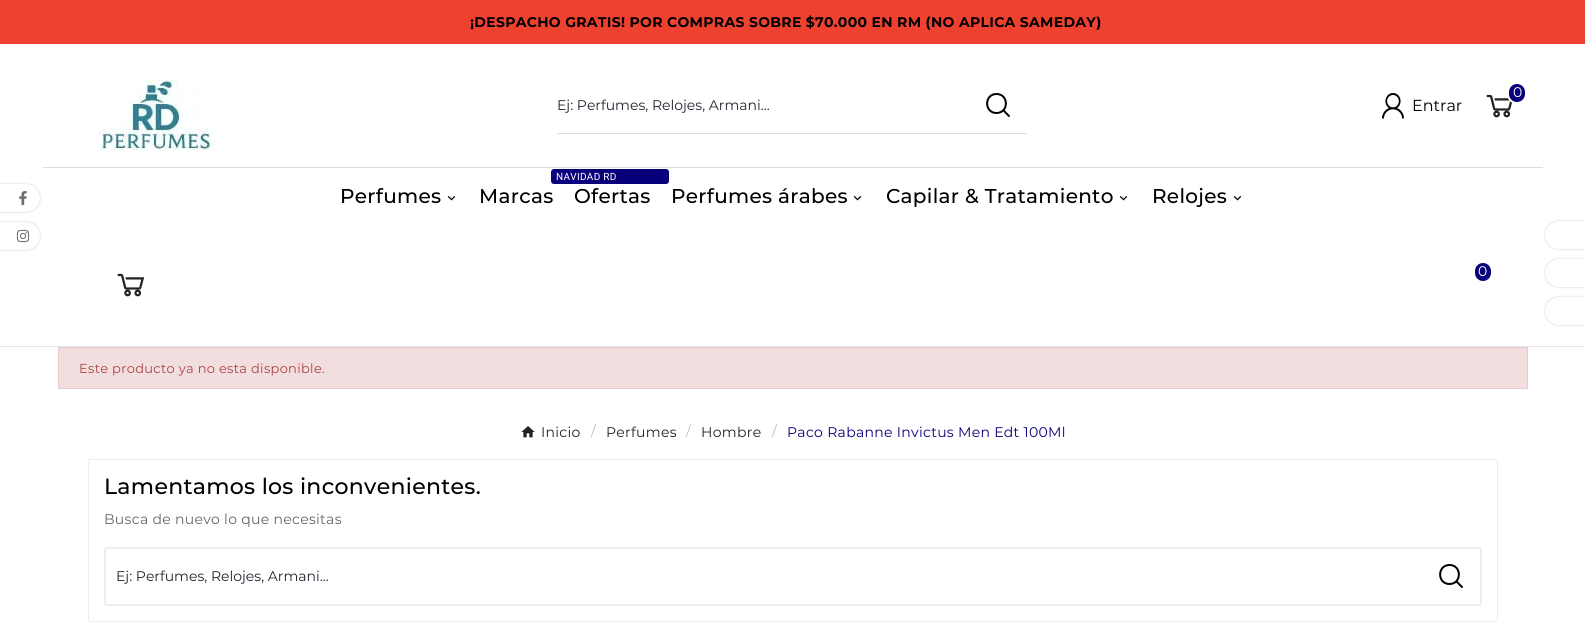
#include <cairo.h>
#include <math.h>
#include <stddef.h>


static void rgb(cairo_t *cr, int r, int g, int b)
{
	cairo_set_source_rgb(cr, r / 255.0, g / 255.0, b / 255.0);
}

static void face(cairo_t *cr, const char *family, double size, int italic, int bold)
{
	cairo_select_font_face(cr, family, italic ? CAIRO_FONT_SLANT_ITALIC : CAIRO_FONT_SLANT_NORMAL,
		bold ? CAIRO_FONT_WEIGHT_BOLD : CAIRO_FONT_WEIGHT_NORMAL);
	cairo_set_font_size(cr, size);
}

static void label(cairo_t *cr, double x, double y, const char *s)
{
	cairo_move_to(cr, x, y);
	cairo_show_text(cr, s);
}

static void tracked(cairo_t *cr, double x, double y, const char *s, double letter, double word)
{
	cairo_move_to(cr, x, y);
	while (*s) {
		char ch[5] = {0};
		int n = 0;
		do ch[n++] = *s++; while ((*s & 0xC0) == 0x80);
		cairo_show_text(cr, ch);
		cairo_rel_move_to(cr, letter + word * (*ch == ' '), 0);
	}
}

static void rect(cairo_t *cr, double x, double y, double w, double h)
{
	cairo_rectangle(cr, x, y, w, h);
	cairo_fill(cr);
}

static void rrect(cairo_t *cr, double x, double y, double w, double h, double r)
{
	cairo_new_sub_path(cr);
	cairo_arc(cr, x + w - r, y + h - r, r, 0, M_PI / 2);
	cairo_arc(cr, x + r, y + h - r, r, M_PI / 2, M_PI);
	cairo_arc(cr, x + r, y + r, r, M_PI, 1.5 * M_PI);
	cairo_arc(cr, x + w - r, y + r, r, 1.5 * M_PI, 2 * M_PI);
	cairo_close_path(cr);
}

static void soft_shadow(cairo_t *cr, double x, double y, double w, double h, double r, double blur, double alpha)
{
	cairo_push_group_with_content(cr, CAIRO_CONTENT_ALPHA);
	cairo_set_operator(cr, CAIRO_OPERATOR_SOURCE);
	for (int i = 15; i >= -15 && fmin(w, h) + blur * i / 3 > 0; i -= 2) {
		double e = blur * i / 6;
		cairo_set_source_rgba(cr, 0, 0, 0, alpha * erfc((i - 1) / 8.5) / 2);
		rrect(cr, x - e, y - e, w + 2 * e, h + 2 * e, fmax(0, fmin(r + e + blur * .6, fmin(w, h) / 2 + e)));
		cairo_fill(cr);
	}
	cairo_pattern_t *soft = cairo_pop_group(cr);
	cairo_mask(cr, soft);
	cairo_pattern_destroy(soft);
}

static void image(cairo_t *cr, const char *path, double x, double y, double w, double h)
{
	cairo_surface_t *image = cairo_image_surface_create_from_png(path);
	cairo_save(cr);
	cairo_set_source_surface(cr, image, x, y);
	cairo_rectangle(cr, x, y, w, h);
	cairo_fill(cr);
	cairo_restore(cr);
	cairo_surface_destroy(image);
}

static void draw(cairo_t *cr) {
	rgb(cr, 255, 255, 255);
	cairo_paint(cr);
	rgb(cr, 229, 229, 229);
	rect(cr, 0, 346, 1585, 1);
	rgb(cr, 238, 65, 48);
	rect(cr, 0, 0, 1585, 44);
	face(cr, "Montserrat", 14, 0, 1);
	rgb(cr, 0, 0, 0);
	tracked(cr, 470, 27, "¡DESPACHO GRATIS! POR COMPRAS SOBRE $70.000 EN RM (NO APLICA SAMEDAY)", 0.3, 0);
	rgb(cr, 222, 222, 222);
	rect(cr, 43, 167, 1500, 1);
	image(cr, "image0.png", 98, 80, 119, 70);
	rgb(cr, 221, 221, 221);
	rect(cr, 557, 133, 470, 1);
	face(cr, "Montserrat", 14, 0, 0);
	rgb(cr, 31, 38, 47);
	label(cr, 557, 110, "Ej: Perfumes, Relojes, Armani...");
	cairo_new_path(cr);
	cairo_move_to(cr, 996.5, 113);
	cairo_curve_to(cr, 1009, 113, 1009, 94, 996.5, 94);
	cairo_curve_to(cr, 984, 94, 984, 113, 996.5, 113);
	cairo_close_path(cr);
	cairo_move_to(cr, 1009, 116);
	cairo_line_to(cr, 1004, 111);
	rgb(cr, 0, 0, 0);
	cairo_set_line_cap(cr, CAIRO_LINE_CAP_ROUND);
	cairo_set_line_join(cr, CAIRO_LINE_JOIN_ROUND);
	cairo_stroke(cr);
	image(cr, "image1.png", 1486, 94, 27, 24);
	rgb(cr, 8, 0, 123);
	rrect(cr, 1508, 83, 18, 20, 9);
	cairo_fill_preserve(cr);
	rgb(cr, 255, 255, 255);
	cairo_set_line_cap(cr, CAIRO_LINE_CAP_BUTT);
	cairo_set_line_join(cr, CAIRO_LINE_JOIN_MITER);
	cairo_stroke(cr);
	tracked(cr, 1513, 97, "0", 0.3, 0);
	image(cr, "image2.png", 1382, 93, 22, 26);
	face(cr, "Montserrat", 16, 0, 0);
	rgb(cr, 0, 0, 0);
	label(cr, 1412, 111, "Entrar");
	face(cr, "Montserrat Medium", 20, 0, 0);
	tracked(cr, 340, 203, "Perfumes", 0.3, 0);
	image(cr, "image3.png", 447, 196, 9, 5);
	tracked(cr, 479, 203, "Marcas", 0.3, 0);
	rgb(cr, 8, 0, 123);
	rrect(cr, 551, 169, 118, 15, 3);
	cairo_fill(cr);
	face(cr, "Roboto", 10, 0, 0);
	rgb(cr, 255, 255, 255);
	tracked(cr, 556, 180, "NAVIDAD RD", 0.3, 0);
	face(cr, "Montserrat Medium", 20, 0, 0);
	rgb(cr, 0, 0, 0);
	tracked(cr, 574, 203, "Ofertas", 0.3, 0);
	tracked(cr, 671, 203, "Perfumes árabes", 0.3, 0);
	image(cr, "image3.png", 853, 196, 9, 5);
	tracked(cr, 886, 203, "Capilar & Tratamiento", 0.3, 0);
	image(cr, "image3.png", 1119, 196, 9, 5);
	tracked(cr, 1152, 203, "Relojes", 0.3, 0);
	image(cr, "image3.png", 1233, 196, 9, 5);
	rgb(cr, 8, 0, 123);
	rrect(cr, 1474, 262, 18, 20, 9);
	cairo_fill_preserve(cr);
	rgb(cr, 255, 255, 255);
	cairo_stroke(cr);
	face(cr, "Montserrat", 14, 0, 0);
	tracked(cr, 1478, 276, "0", 0.3, 0);
	image(cr, "image4.png", 117, 273, 28, 24);
	rgb(cr, 0, 0, 0);
	soft_shadow(cr, -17, 184, 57, 28, 14, 1, 0.2);
	rgb(cr, 255, 255, 255);
	cairo_new_path(cr);
	cairo_move_to(cr, -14, 184);
	cairo_line_to(cr, 26, 184);
	cairo_curve_to(cr, 33.5, 184, 40, 190.5, 40, 198);
	cairo_curve_to(cr, 40, 205.5, 33.5, 212, 26, 212);
	cairo_line_to(cr, -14, 212);
	cairo_close_path(cr);
	cairo_fill(cr);
	image(cr, "image5.png", 19, 191, 8, 14);
	rgb(cr, 0, 0, 0);
	soft_shadow(cr, -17, 222, 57, 28, 14, 1, 0.2);
	rgb(cr, 255, 255, 255);
	cairo_new_path(cr);
	cairo_move_to(cr, -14, 222);
	cairo_line_to(cr, 26, 222);
	cairo_curve_to(cr, 33.5, 222, 40, 228.5, 40, 236);
	cairo_curve_to(cr, 40, 243.5, 33.5, 250, 26, 250);
	cairo_line_to(cr, -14, 250);
	cairo_close_path(cr);
	cairo_fill(cr);
	image(cr, "image6.png", 16, 229, 14, 14);
	rgb(cr, 0, 0, 0);
	soft_shadow(cr, 1545, 221, 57, 28, 14, 1, 0.2);
	rgb(cr, 255, 255, 255);
	cairo_new_path(cr);
	cairo_move_to(cr, 1559, 221);
	cairo_line_to(cr, 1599, 221);
	cairo_line_to(cr, 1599, 249);
	cairo_line_to(cr, 1559, 249);
	cairo_curve_to(cr, 1551.5, 249, 1545, 242.5, 1545, 235);
	cairo_curve_to(cr, 1545, 227.5, 1551.5, 221, 1559, 221);
	cairo_close_path(cr);
	cairo_fill(cr);
	rgb(cr, 0, 0, 0);
	soft_shadow(cr, 1545, 259, 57, 28, 14, 1, 0.2);
	rgb(cr, 255, 255, 255);
	cairo_new_path(cr);
	cairo_move_to(cr, 1559, 259);
	cairo_line_to(cr, 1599, 259);
	cairo_line_to(cr, 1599, 287);
	cairo_line_to(cr, 1559, 287);
	cairo_curve_to(cr, 1551.5, 287, 1545, 280.5, 1545, 273);
	cairo_curve_to(cr, 1545, 265.5, 1551.5, 259, 1559, 259);
	cairo_close_path(cr);
	cairo_fill(cr);
	rgb(cr, 0, 0, 0);
	soft_shadow(cr, 1545, 297, 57, 28, 14, 1, 0.2);
	rgb(cr, 255, 255, 255);
	cairo_new_path(cr);
	cairo_move_to(cr, 1559, 297);
	cairo_line_to(cr, 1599, 297);
	cairo_line_to(cr, 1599, 325);
	cairo_line_to(cr, 1559, 325);
	cairo_curve_to(cr, 1551.5, 325, 1545, 318.5, 1545, 311);
	cairo_curve_to(cr, 1545, 303.5, 1551.5, 297, 1559, 297);
	cairo_close_path(cr);
	cairo_fill(cr);
	rgb(cr, 242, 222, 222);
	cairo_rectangle(cr, 58.5, 347.5, 1469, 41);
	cairo_fill_preserve(cr);
	rgb(cr, 235, 204, 204);
	cairo_set_line_width(cr, 1);
	cairo_stroke(cr);
	face(cr, "Montserrat", 13, 0, 0);
	rgb(cr, 169, 68, 66);
	tracked(cr, 79, 373, "Este producto ya no esta disponible.", 0.3, 0);
	image(cr, "image7.png", 521, 426, 14, 12);
	face(cr, "Montserrat", 14, 0, 0);
	rgb(cr, 35, 35, 35);
	tracked(cr, 541, 437, "Inicio", 0.3, 0);
	rgb(cr, 189, 189, 189);
	tracked(cr, 591, 436, "/", 0.3, 0);
	rgb(cr, 35, 35, 35);
	tracked(cr, 606, 437, "Perfumes", 0.3, 0);
	rgb(cr, 189, 189, 189);
	tracked(cr, 686, 436, "/", 0.3, 0);
	rgb(cr, 35, 35, 35);
	tracked(cr, 701, 437, "Hombre", 0.3, 0);
	rgb(cr, 189, 189, 189);
	tracked(cr, 772, 436, "/", 0.3, 0);
	rgb(cr, 8, 0, 123);
	tracked(cr, 787, 437, "Paco Rabanne Invictus Men Edt 100Ml", 0.3, 0);
	rrect(cr, 88.5, 459.5, 1409, 162, 2.5);
	rgb(cr, 237, 237, 237);
	cairo_stroke(cr);
	face(cr, "Montserrat Medium", 22, 0, 0);
	rgb(cr, 0, 0, 0);
	tracked(cr, 104, 494, "Lamentamos los inconvenientes.", 0.3, 0);
	face(cr, "Montserrat", 14, 0, 0);
	rgb(cr, 102, 102, 102);
	tracked(cr, 104, 524, "Busca de nuevo lo que necesitas", 0.3, 0);
	rrect(cr, 105, 548, 1376, 57, 2);
	rgb(cr, 237, 237, 237);
	cairo_set_line_width(cr, 2);
	cairo_stroke(cr);
	rgb(cr, 255, 255, 255);
	cairo_new_path(cr);
	cairo_move_to(cr, 107, 549);
	cairo_line_to(cr, 1423, 549);
	cairo_line_to(cr, 1423, 603);
	cairo_line_to(cr, 106, 603);
	cairo_line_to(cr, 106, 550);
	cairo_curve_to(cr, 106, 549.5, 106.5, 549, 107, 549);
	cairo_close_path(cr);
	cairo_fill(cr);
	rgb(cr, 31, 38, 47);
	label(cr, 116, 581, "Ej: Perfumes, Relojes, Armani...");
	rgb(cr, 255, 255, 255);
	cairo_new_path(cr);
	cairo_move_to(cr, 1423, 549);
	cairo_line_to(cr, 1479, 549);
	cairo_curve_to(cr, 1479.5, 549, 1480, 549.5, 1480, 550);
	cairo_line_to(cr, 1480, 603);
	cairo_curve_to(cr, 1480, 603.5, 1479.5, 604, 1479, 604);
	cairo_line_to(cr, 1423, 604);
	cairo_close_path(cr);
	cairo_fill(cr);
	cairo_new_path(cr);
	cairo_move_to(cr, 1449.5, 584);
	cairo_curve_to(cr, 1462, 584, 1462, 565, 1449.5, 565);
	cairo_curve_to(cr, 1437, 565, 1437, 584, 1449.5, 584);
	cairo_close_path(cr);
	cairo_move_to(cr, 1462, 587);
	cairo_line_to(cr, 1457, 582);
	rgb(cr, 0, 0, 0);
	cairo_set_line_cap(cr, CAIRO_LINE_CAP_ROUND);
	cairo_set_line_join(cr, CAIRO_LINE_JOIN_ROUND);
	cairo_stroke(cr);
}

int main(void) {
	cairo_surface_t *surface = cairo_image_surface_create(CAIRO_FORMAT_RGB24, 1585, 622);
	cairo_t *cr = cairo_create(surface);
	cairo_font_options_t *options = cairo_font_options_create();
	cairo_font_options_set_hint_metrics(options, CAIRO_HINT_METRICS_OFF);
	cairo_font_options_set_hint_style(options, CAIRO_HINT_STYLE_NONE);
	cairo_set_font_options(cr, options);
	cairo_set_miter_limit(cr, 4);
	draw(cr);
	cairo_surface_write_to_png(surface, "render.png");
	cairo_font_options_destroy(options);
	cairo_destroy(cr);
	cairo_surface_destroy(surface);
	return 0;
}
